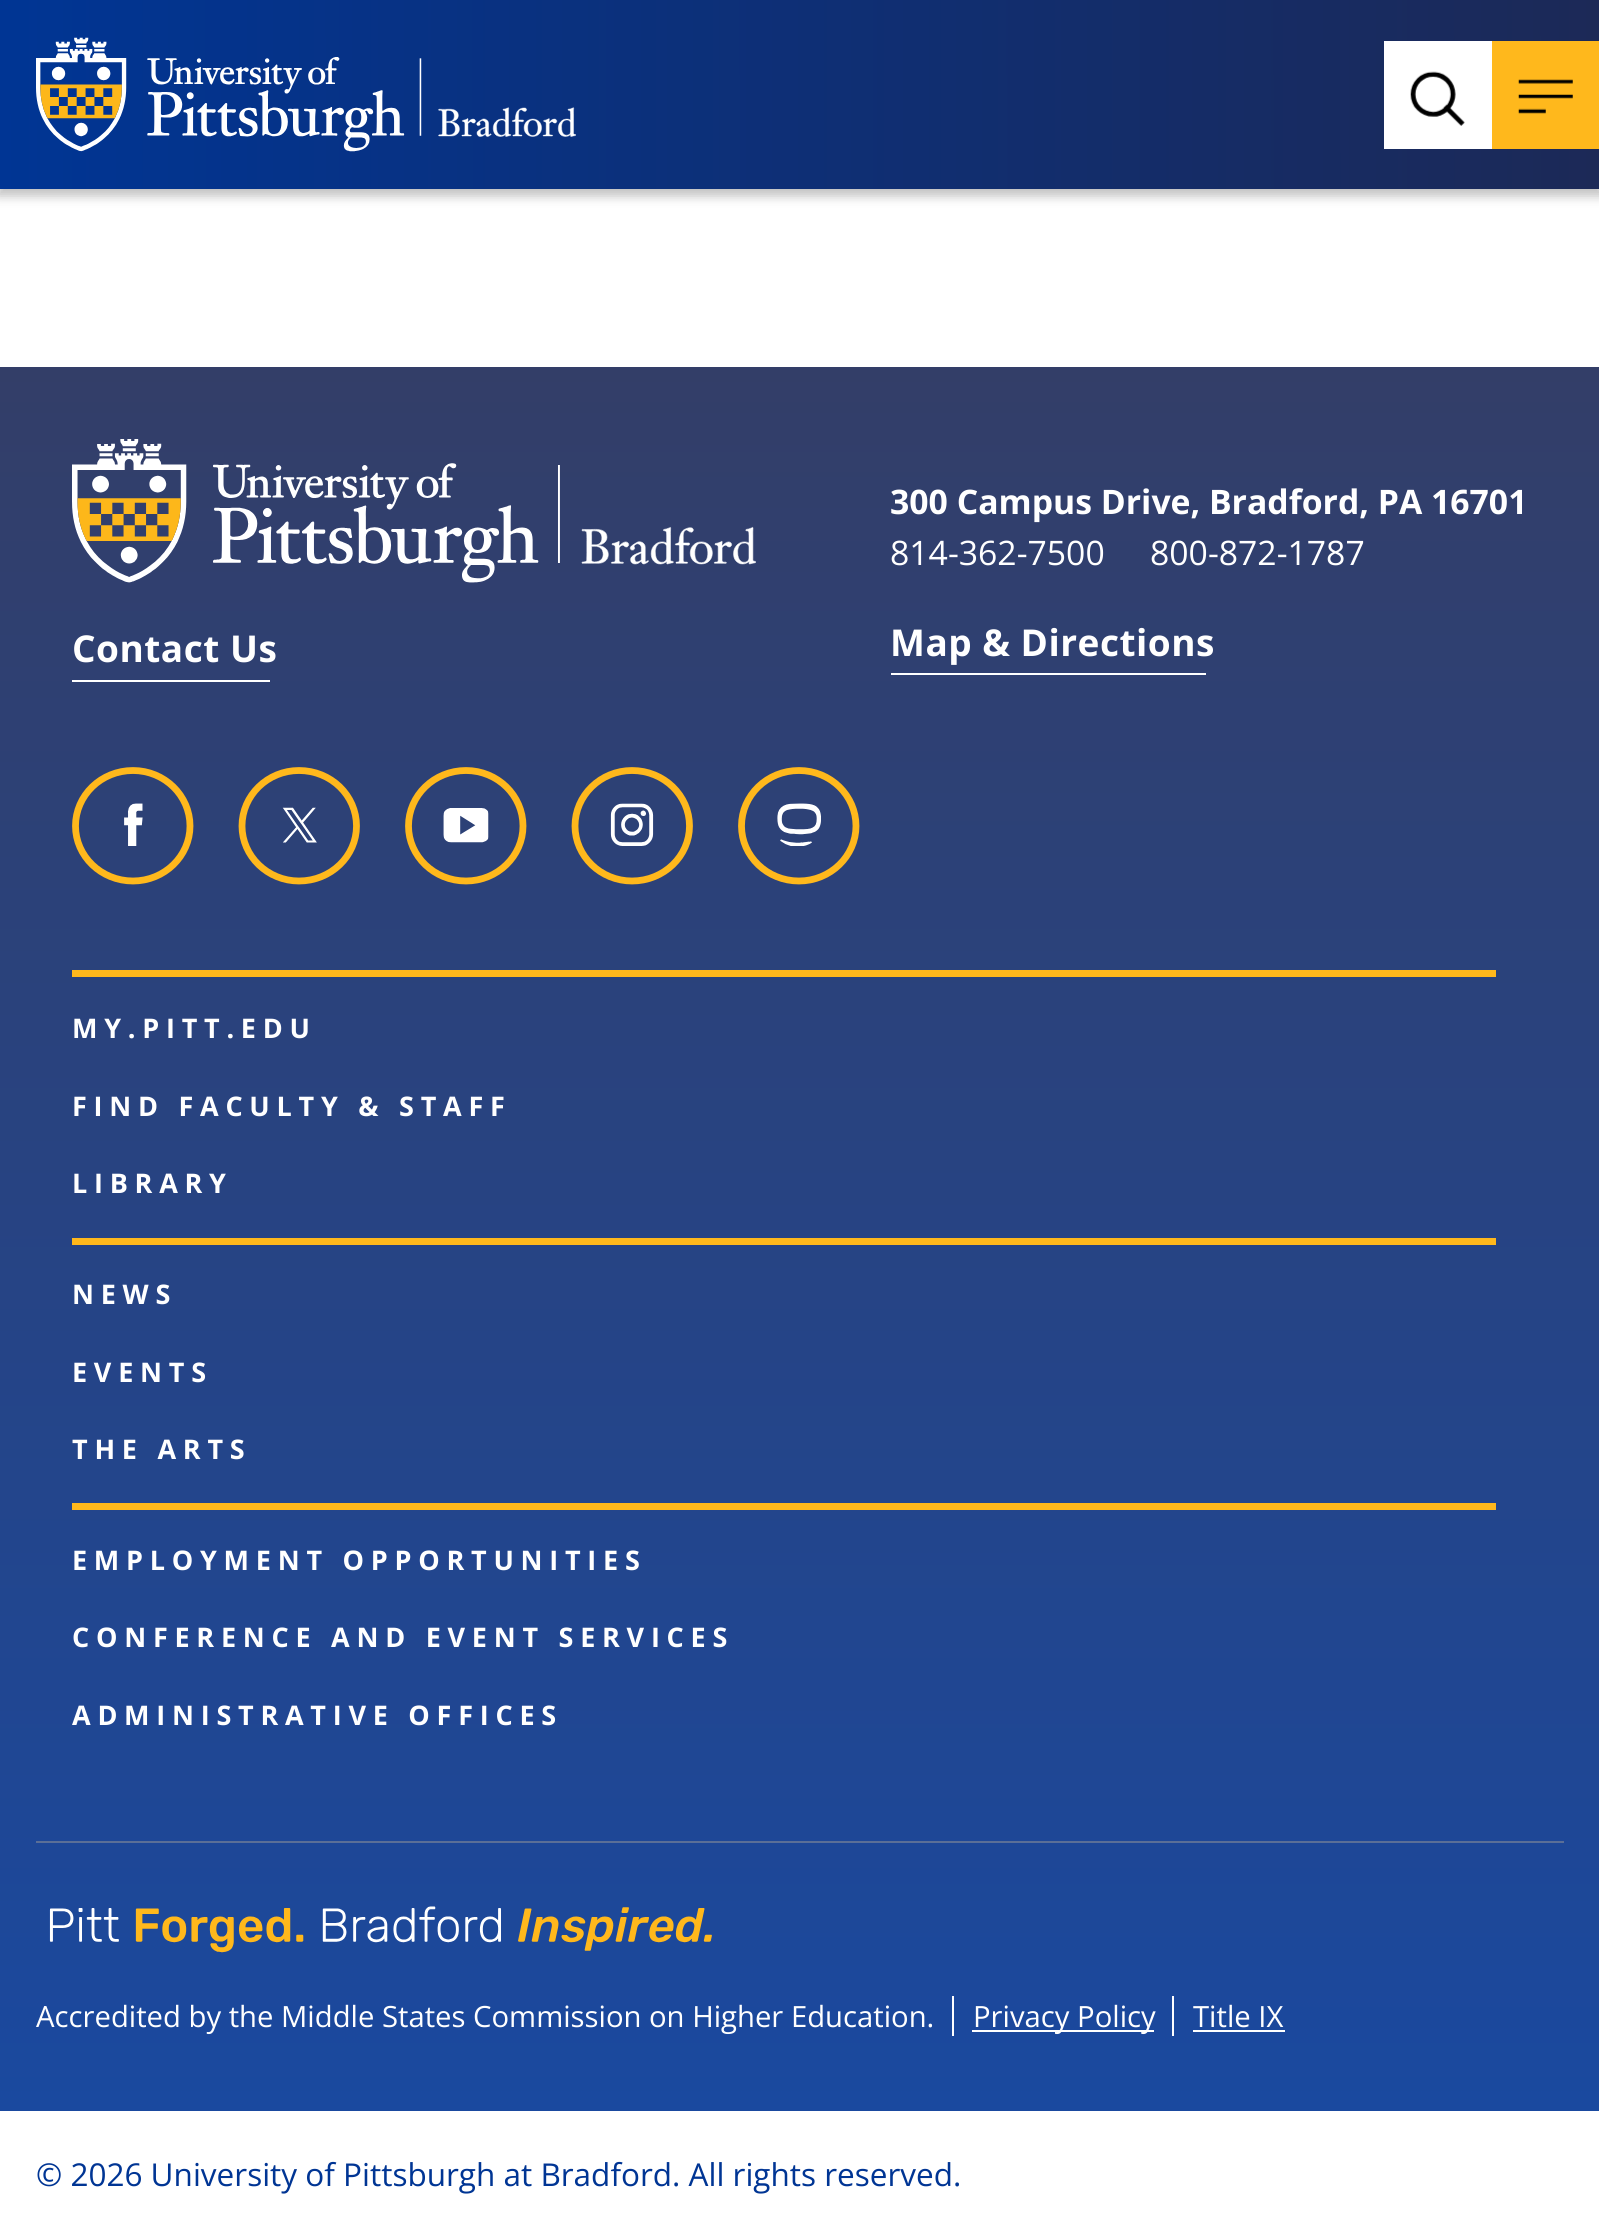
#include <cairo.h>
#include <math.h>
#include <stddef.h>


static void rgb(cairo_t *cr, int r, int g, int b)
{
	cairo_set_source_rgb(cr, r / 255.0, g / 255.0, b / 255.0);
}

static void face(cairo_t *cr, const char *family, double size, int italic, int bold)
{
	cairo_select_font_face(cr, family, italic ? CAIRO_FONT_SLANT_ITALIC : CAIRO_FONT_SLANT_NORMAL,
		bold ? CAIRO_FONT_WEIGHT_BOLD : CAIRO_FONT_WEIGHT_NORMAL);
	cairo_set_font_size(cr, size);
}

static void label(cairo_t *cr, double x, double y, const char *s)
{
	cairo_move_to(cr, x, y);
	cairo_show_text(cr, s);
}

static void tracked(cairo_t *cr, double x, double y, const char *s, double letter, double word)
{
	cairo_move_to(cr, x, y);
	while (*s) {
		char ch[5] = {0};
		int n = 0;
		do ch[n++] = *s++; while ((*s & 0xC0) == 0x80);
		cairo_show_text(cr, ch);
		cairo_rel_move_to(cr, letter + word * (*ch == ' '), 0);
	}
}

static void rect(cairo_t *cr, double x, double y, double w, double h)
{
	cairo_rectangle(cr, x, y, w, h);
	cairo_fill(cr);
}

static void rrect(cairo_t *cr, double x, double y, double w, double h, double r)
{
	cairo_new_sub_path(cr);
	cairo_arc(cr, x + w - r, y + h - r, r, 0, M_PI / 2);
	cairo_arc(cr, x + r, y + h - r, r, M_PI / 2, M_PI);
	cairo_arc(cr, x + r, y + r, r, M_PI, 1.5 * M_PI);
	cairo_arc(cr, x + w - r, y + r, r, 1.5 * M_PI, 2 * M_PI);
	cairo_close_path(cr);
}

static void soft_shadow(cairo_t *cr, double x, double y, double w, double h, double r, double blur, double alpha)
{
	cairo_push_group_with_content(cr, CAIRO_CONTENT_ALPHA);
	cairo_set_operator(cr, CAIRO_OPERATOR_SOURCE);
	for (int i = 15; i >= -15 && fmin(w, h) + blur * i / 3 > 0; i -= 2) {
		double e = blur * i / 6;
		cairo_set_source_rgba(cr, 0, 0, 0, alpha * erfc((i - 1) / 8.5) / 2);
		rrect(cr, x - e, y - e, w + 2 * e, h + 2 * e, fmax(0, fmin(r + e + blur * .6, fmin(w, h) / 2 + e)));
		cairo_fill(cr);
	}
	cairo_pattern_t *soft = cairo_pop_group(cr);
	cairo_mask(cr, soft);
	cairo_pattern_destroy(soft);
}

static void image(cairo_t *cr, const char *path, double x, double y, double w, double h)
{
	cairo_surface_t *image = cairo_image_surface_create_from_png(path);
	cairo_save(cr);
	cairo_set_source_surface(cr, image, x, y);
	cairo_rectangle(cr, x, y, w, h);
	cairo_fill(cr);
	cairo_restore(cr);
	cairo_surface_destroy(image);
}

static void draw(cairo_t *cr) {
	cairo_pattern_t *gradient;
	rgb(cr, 255, 255, 255);
	cairo_paint(cr);
	rgb(cr, 0, 0, 0);
	soft_shadow(cr, -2, 2, 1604, 194, 0, 5.5, 0.25);
	gradient = cairo_pattern_create_linear(0, 95, 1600, 94);
	cairo_pattern_add_color_stop_rgba(gradient, 0, 0, 0.208, 0.58, 1);
	cairo_pattern_add_color_stop_rgba(gradient, 1, 0.11, 0.161, 0.341, 1);
	cairo_set_source(cr, gradient);
	cairo_pattern_destroy(gradient);
	rect(cr, 0, 0, 1599, 189);
	image(cr, "image0.png", 36, 37, 540, 115);
	rgb(cr, 255, 255, 255);
	rect(cr, 1384, 41, 108, 108);
	image(cr, "image1.png", 1410, 71, 55, 55);
	rgb(cr, 255, 184, 28);
	rect(cr, 1492, 41, 107, 108);
	image(cr, "image2.png", 1518, 79, 55, 35);
	gradient = cairo_pattern_create_linear(800, 2111, 800, 367);
	cairo_pattern_add_color_stop_rgba(gradient, 0, 0.102, 0.286, 0.624, 1);
	cairo_pattern_add_color_stop_rgba(gradient, 1, 0.2, 0.243, 0.408, 1);
	cairo_set_source(cr, gradient);
	cairo_pattern_destroy(gradient);
	rect(cr, 0, 367, 1599, 1744);
	image(cr, "image3.png", 72, 439, 684, 144);
	face(cr, "Open Sans", 37, 0, 1);
	rgb(cr, 255, 255, 255);
	tracked(cr, 72, 662, "Contact Us", 0.5, 0);
	rect(cr, 72, 680, 198, 2);
	face(cr, "Open Sans", 33.75, 0, 1);
	label(cr, 890, 514, "300 Campus Drive, Bradford, PA 16701");
	face(cr, "Open Sans", 33.75, 0, 0);
	label(cr, 890, 565, "814-362-7500");
	label(cr, 1150, 565, "800-872-1787");
	face(cr, "Open Sans", 37, 0, 1);
	tracked(cr, 890, 656, "Map & Directions", 0.5, 0);
	rect(cr, 891, 673, 315, 2);
	cairo_new_path(cr);
	cairo_move_to(cr, 133, 770.5);
	cairo_curve_to(cr, 164.5, 770.5, 190, 795.5, 190, 826);
	cairo_curve_to(cr, 190, 856, 164.5, 881, 133, 881);
	cairo_curve_to(cr, 101, 881, 75.5, 856, 75.5, 826);
	cairo_curve_to(cr, 75.5, 795.5, 101, 770.5, 133, 770.5);
	cairo_close_path(cr);
	rgb(cr, 255, 184, 28);
	cairo_set_line_width(cr, 6.8);
	cairo_stroke(cr);
	image(cr, "image4.png", 124, 803, 19, 43);
	cairo_new_path(cr);
	cairo_move_to(cr, 299, 770.5);
	cairo_curve_to(cr, 331, 770.5, 356.5, 795.5, 356.5, 826);
	cairo_curve_to(cr, 356.5, 856, 331, 881, 299, 881);
	cairo_curve_to(cr, 267.5, 881, 242, 856, 242, 826);
	cairo_curve_to(cr, 242, 795.5, 267.5, 770.5, 299, 770.5);
	cairo_close_path(cr);
	cairo_stroke(cr);
	image(cr, "image5.png", 282, 807, 35, 36);
	cairo_new_path(cr);
	cairo_move_to(cr, 466, 770.5);
	cairo_curve_to(cr, 497.5, 770.5, 523, 795.5, 523, 826);
	cairo_curve_to(cr, 523, 856, 497.5, 881, 466, 881);
	cairo_curve_to(cr, 434, 881, 408.5, 856, 408.5, 826);
	cairo_curve_to(cr, 408.5, 795.5, 434, 770.5, 466, 770.5);
	cairo_close_path(cr);
	cairo_stroke(cr);
	image(cr, "image6.png", 443, 808, 46, 35);
	cairo_new_path(cr);
	cairo_move_to(cr, 632, 770.5);
	cairo_curve_to(cr, 664, 770.5, 689.5, 795.5, 689.5, 826);
	cairo_curve_to(cr, 689.5, 856, 664, 881, 632, 881);
	cairo_curve_to(cr, 600.5, 881, 575, 856, 575, 826);
	cairo_curve_to(cr, 575, 795.5, 600.5, 770.5, 632, 770.5);
	cairo_close_path(cr);
	cairo_stroke(cr);
	image(cr, "image7.png", 610, 803, 44, 43);
	cairo_new_path(cr);
	cairo_move_to(cr, 799, 770.5);
	cairo_curve_to(cr, 830.5, 770.5, 856, 795.5, 856, 826);
	cairo_curve_to(cr, 856, 856, 830.5, 881, 799, 881);
	cairo_curve_to(cr, 767, 881, 741.5, 856, 741.5, 826);
	cairo_curve_to(cr, 741.5, 795.5, 767, 770.5, 799, 770.5);
	cairo_close_path(cr);
	cairo_stroke(cr);
	image(cr, "image8.png", 777, 803, 44, 43);
	rect(cr, 72, 970, 1424, 7);
	face(cr, "Open Sans", 27, 0, 1);
	rgb(cr, 255, 255, 255);
	tracked(cr, 72, 1038, "MY.PITT.EDU", 6.75, 0);
	tracked(cr, 72, 1116, "FIND FACULTY & STAFF", 6.75, 0);
	tracked(cr, 72, 1193, "LIBRARY", 6.75, 0);
	rgb(cr, 255, 184, 28);
	rect(cr, 72, 1238, 1424, 7);
	rgb(cr, 255, 255, 255);
	tracked(cr, 72, 1304, "NEWS", 6.75, 0);
	tracked(cr, 72, 1382, "EVENTS", 6.75, 0);
	tracked(cr, 72, 1459, "THE ARTS", 6.75, 0);
	rgb(cr, 255, 184, 28);
	rect(cr, 72, 1503, 1424, 7);
	rgb(cr, 255, 255, 255);
	tracked(cr, 72, 1570, "EMPLOYMENT OPPORTUNITIES", 6.75, 0);
	tracked(cr, 72, 1647, "CONFERENCE AND EVENT SERVICES", 6.75, 0);
	tracked(cr, 72, 1725, "ADMINISTRATIVE OFFICES", 6.75, 0);
	rgb(cr, 91, 111, 151);
	rect(cr, 36, 1841, 1528, 2);
	image(cr, "image9.png", 49, 1906, 663, 47);
	face(cr, "Open Sans", 29.25, 0, 0);
	rgb(cr, 255, 255, 255);
	label(cr, 36, 2027, "Accredited by the Middle States Commission on Higher Education.");
	rect(cr, 952, 1996, 2, 40);
	rect(cr, 972, 2030, 182, 2);
	label(cr, 973, 2027, "Privacy Policy");
	rect(cr, 1172, 1996, 2, 40);
	label(cr, 1193, 2027, "Title IX");
	rect(cr, 1193, 2030, 92, 2);
	face(cr, "Open Sans", 31.5, 0, 0);
	rgb(cr, 0, 53, 148);
	label(cr, 36, 2186, "© 2026 University of Pittsburgh at Bradford. All rights reserved.");
}

int main(void) {
	cairo_surface_t *surface = cairo_image_surface_create(CAIRO_FORMAT_RGB24, 1599, 2240);
	cairo_t *cr = cairo_create(surface);
	cairo_font_options_t *options = cairo_font_options_create();
	cairo_font_options_set_hint_metrics(options, CAIRO_HINT_METRICS_OFF);
	cairo_font_options_set_hint_style(options, CAIRO_HINT_STYLE_NONE);
	cairo_set_font_options(cr, options);
	cairo_set_miter_limit(cr, 4);
	draw(cr);
	cairo_surface_write_to_png(surface, "render.png");
	cairo_font_options_destroy(options);
	cairo_destroy(cr);
	cairo_surface_destroy(surface);
	return 0;
}
